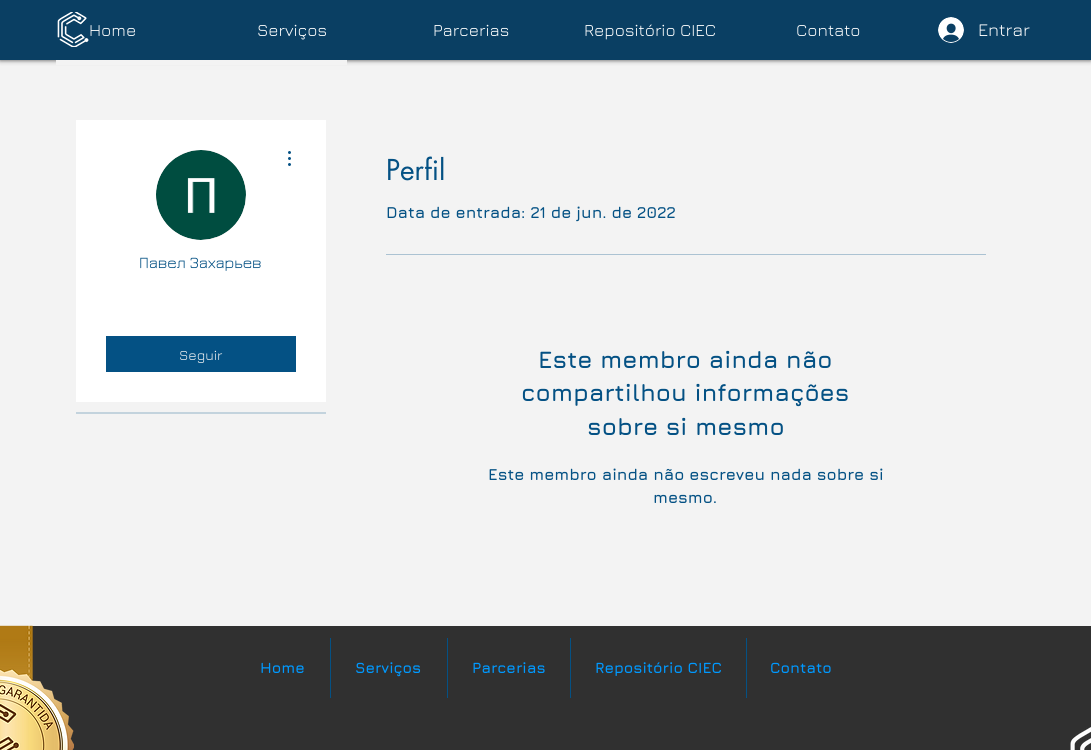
#include <cairo.h>
#include <math.h>
#include <stddef.h>


static void rgb(cairo_t *cr, int r, int g, int b)
{
	cairo_set_source_rgb(cr, r / 255.0, g / 255.0, b / 255.0);
}

static void face(cairo_t *cr, const char *family, double size, int italic, int bold)
{
	cairo_select_font_face(cr, family, italic ? CAIRO_FONT_SLANT_ITALIC : CAIRO_FONT_SLANT_NORMAL,
		bold ? CAIRO_FONT_WEIGHT_BOLD : CAIRO_FONT_WEIGHT_NORMAL);
	cairo_set_font_size(cr, size);
}

static void label(cairo_t *cr, double x, double y, const char *s)
{
	cairo_move_to(cr, x, y);
	cairo_show_text(cr, s);
}

static void rect(cairo_t *cr, double x, double y, double w, double h)
{
	cairo_rectangle(cr, x, y, w, h);
	cairo_fill(cr);
}

static void rrect(cairo_t *cr, double x, double y, double w, double h, double r)
{
	cairo_new_sub_path(cr);
	cairo_arc(cr, x + w - r, y + h - r, r, 0, M_PI / 2);
	cairo_arc(cr, x + r, y + h - r, r, M_PI / 2, M_PI);
	cairo_arc(cr, x + r, y + r, r, M_PI, 1.5 * M_PI);
	cairo_arc(cr, x + w - r, y + r, r, 1.5 * M_PI, 2 * M_PI);
	cairo_close_path(cr);
}

static void soft_shadow(cairo_t *cr, double x, double y, double w, double h, double r, double blur, double alpha)
{
	cairo_push_group_with_content(cr, CAIRO_CONTENT_ALPHA);
	cairo_set_operator(cr, CAIRO_OPERATOR_SOURCE);
	for (int i = 15; i >= -15 && fmin(w, h) + blur * i / 3 > 0; i -= 2) {
		double e = blur * i / 6;
		cairo_set_source_rgba(cr, 0, 0, 0, alpha * erfc((i - 1) / 8.5) / 2);
		rrect(cr, x - e, y - e, w + 2 * e, h + 2 * e, fmax(0, fmin(r + e + blur * .6, fmin(w, h) / 2 + e)));
		cairo_fill(cr);
	}
	cairo_pattern_t *soft = cairo_pop_group(cr);
	cairo_mask(cr, soft);
	cairo_pattern_destroy(soft);
}

static void image(cairo_t *cr, const char *path, double x, double y, double w, double h)
{
	cairo_surface_t *image = cairo_image_surface_create_from_png(path);
	cairo_save(cr);
	cairo_set_source_surface(cr, image, x, y);
	cairo_rectangle(cr, x, y, w, h);
	cairo_fill(cr);
	cairo_restore(cr);
	cairo_surface_destroy(image);
}

static void draw(cairo_t *cr) {
	rgb(cr, 243, 243, 243);
	cairo_paint(cr);
	rgb(cr, 0, 0, 0);
	soft_shadow(cr, 0, 0, 1091, 60, 0, 2.5, 0.7);
	rgb(cr, 10, 63, 99);
	rect(cr, 0, 0, 1091, 60);
	image(cr, "image0.png", 57, 12, 32, 35);
	face(cr, "Jura", 17, 0, 0);
	rgb(cr, 255, 255, 255);
	label(cr, 89, 36, "Home");
	label(cr, 257, 36, "Serviços");
	label(cr, 433, 36, "Parcerias");
	label(cr, 584, 36, "Repositório CIEC");
	label(cr, 796, 36, "Contato");
	image(cr, "image1.png", 938, 17, 26, 26);
	face(cr, "Jura", 18, 0, 0);
	label(cr, 978, 36, "Entrar");
	rgb(cr, 243, 243, 243);
	rect(cr, 56, 60, 291, 5);
	rgb(cr, 255, 255, 255);
	rect(cr, 76, 120, 250, 282);
	rgb(cr, 216, 216, 216);
	cairo_new_path(cr);
	cairo_arc(cr, 201, 195, 45, 0, 2 * M_PI);
	cairo_fill(cr);
	image(cr, "image2.png", 156, 150, 90, 90);
	image(cr, "image3.png", 288, 151, 3, 15);
	face(cr, "Jura", 16, 0, 0);
	rgb(cr, 4, 81, 132);
	label(cr, 139, 268, "Павел Захарьев");
	rect(cr, 106, 336, 190, 36);
	face(cr, "Jura", 14, 0, 0);
	rgb(cr, 243, 243, 243);
	label(cr, 179, 360, "Seguir");
	rgb(cr, 195, 211, 221);
	rect(cr, 76, 412, 250, 2);
	face(cr, "futura", 28, 0, 0);
	rgb(cr, 4, 81, 132);
	label(cr, 386, 180, "Perfil");
	face(cr, "Jura", 16, 0, 1);
	label(cr, 386, 218, "Data de entrada: 21 de jun. de 2022");
	rgb(cr, 171, 194, 210);
	rect(cr, 386, 254, 600, 1);
	face(cr, "Jura", 24, 0, 1);
	rgb(cr, 4, 81, 132);
	label(cr, 538, 368, "Este membro ainda não");
	label(cr, 521, 401, "compartilhou informações");
	label(cr, 587, 435, "sobre si mesmo");
	face(cr, "Jura", 16, 0, 1);
	label(cr, 488, 480, "Este membro ainda não escreveu nada sobre si");
	label(cr, 653, 503, "mesmo.");
	rgb(cr, 48, 48, 48);
	rect(cr, 30, 626, 1061, 124);
	image(cr, "image4.png", 0, 625, 74, 125);
	face(cr, "Jura", 15, 0, 1);
	rgb(cr, 0, 153, 255);
	label(cr, 260, 673, "Home");
	rgb(cr, 4, 81, 132);
	rect(cr, 330, 638, 1, 60);
	rgb(cr, 0, 153, 255);
	label(cr, 355, 673, "Serviços");
	rgb(cr, 4, 81, 132);
	rect(cr, 447, 638, 1, 60);
	rgb(cr, 0, 153, 255);
	label(cr, 472, 673, "Parcerias");
	rgb(cr, 4, 81, 132);
	rect(cr, 570, 638, 1, 60);
	rgb(cr, 0, 153, 255);
	label(cr, 595, 673, "Repositório CIEC");
	rgb(cr, 4, 81, 132);
	rect(cr, 746, 638, 1, 60);
	rgb(cr, 0, 153, 255);
	label(cr, 770, 673, "Contato");
	image(cr, "image5.png", 1070, 727, 21, 23);
}

int main(void) {
	cairo_surface_t *surface = cairo_image_surface_create(CAIRO_FORMAT_RGB24, 1091, 750);
	cairo_t *cr = cairo_create(surface);
	cairo_font_options_t *options = cairo_font_options_create();
	cairo_font_options_set_hint_metrics(options, CAIRO_HINT_METRICS_OFF);
	cairo_font_options_set_hint_style(options, CAIRO_HINT_STYLE_NONE);
	cairo_set_font_options(cr, options);
	cairo_set_miter_limit(cr, 4);
	draw(cr);
	cairo_surface_write_to_png(surface, "render.png");
	cairo_font_options_destroy(options);
	cairo_destroy(cr);
	cairo_surface_destroy(surface);
	return 0;
}
